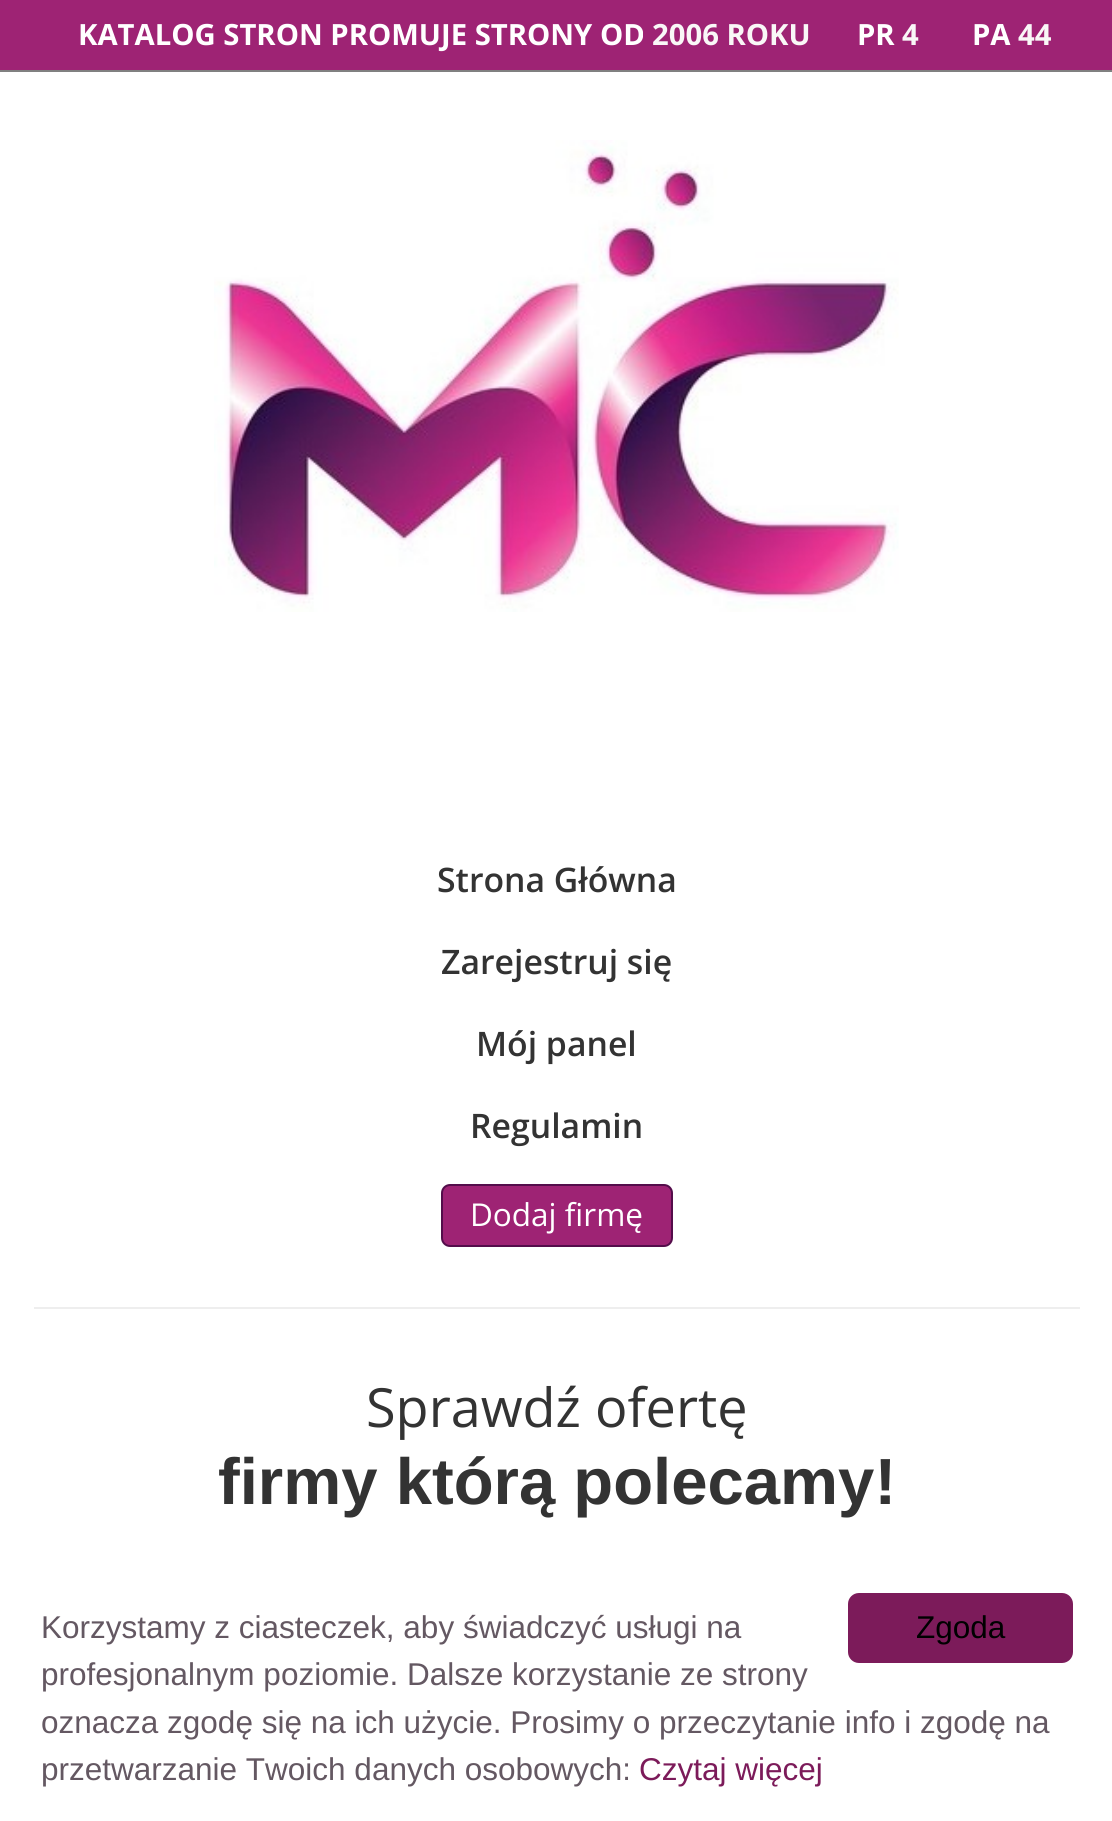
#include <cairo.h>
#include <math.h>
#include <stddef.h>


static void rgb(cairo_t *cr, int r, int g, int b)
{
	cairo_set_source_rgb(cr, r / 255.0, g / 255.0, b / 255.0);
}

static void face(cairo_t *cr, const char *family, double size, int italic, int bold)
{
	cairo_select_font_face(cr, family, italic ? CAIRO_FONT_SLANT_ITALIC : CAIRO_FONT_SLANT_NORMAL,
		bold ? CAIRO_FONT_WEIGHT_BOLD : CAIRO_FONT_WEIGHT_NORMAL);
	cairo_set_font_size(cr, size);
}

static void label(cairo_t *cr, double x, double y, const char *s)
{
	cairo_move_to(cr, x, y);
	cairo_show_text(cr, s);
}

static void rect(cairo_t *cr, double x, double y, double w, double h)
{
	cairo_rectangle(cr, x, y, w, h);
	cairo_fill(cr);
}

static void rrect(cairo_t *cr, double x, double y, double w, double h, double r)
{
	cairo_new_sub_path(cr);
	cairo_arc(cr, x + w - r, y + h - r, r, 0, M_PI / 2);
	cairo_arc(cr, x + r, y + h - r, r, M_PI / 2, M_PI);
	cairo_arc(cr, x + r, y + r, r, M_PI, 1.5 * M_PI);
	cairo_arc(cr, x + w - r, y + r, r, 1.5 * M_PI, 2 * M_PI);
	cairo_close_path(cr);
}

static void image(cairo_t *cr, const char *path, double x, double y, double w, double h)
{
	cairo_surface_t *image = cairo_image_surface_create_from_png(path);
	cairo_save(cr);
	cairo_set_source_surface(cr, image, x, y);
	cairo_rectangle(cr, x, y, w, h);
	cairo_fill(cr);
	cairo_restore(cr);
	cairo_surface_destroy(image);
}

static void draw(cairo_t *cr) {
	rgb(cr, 255, 255, 255);
	cairo_paint(cr);
	rgb(cr, 158, 35, 116);
	rect(cr, 0, 0, 1112, 70);
	rgb(cr, 128, 128, 128);
	rect(cr, 0, 70, 1112, 2);
	face(cr, "Open Sans", 29.25, 0, 1);
	rgb(cr, 255, 255, 255);
	label(cr, 78, 45, "KATALOG STRON PROMUJE STRONY OD");
	rgb(cr, 249, 247, 247);
	label(cr, 652, 45, "2006 ROKU");
	rgb(cr, 255, 255, 255);
	label(cr, 857, 45, "PR");
	rgb(cr, 249, 247, 247);
	label(cr, 902, 45, "4");
	rgb(cr, 255, 255, 255);
	label(cr, 972, 45, "PA");
	rgb(cr, 249, 247, 247);
	label(cr, 1018, 45, "44");
	image(cr, "image0.png", 214, 140, 685, 472);
	face(cr, "Open Sans SemiBold", 33.75, 0, 0);
	rgb(cr, 51, 51, 51);
	label(cr, 437, 892, "Strona Główna");
	label(cr, 441, 974, "Zarejestruj się");
	label(cr, 476, 1056, "Mój panel");
	label(cr, 470, 1138, "Regulamin");
	rgb(cr, 158, 35, 116);
	rrect(cr, 442, 1185, 230, 61, 8);
	cairo_fill_preserve(cr);
	rgb(cr, 84, 13, 75);
	cairo_stroke(cr);
	face(cr, "Open Sans", 31.5, 0, 0);
	rgb(cr, 255, 255, 255);
	label(cr, 470, 1226, "Dodaj firmę");
	rgb(cr, 238, 238, 238);
	rect(cr, 34, 1307, 1046, 2);
	face(cr, "Open Sans", 54, 0, 0);
	rgb(cr, 51, 51, 51);
	label(cr, 366, 1427, "Sprawdź ofertę");
	face(cr, "Liberation Sans", 65.25, 0, 1);
	label(cr, 218, 1504, "firmy którą polecamy!");
	face(cr, "Liberation Sans", 31.5, 0, 0);
	rgb(cr, 100, 88, 98);
	label(cr, 41, 1638, "Korzystamy z ciasteczek, aby świadczyć usługi na");
	label(cr, 41, 1685, "profesjonalnym poziomie. Dalsze korzystanie ze strony");
	label(cr, 41, 1733, "oznacza zgodę się na ich użycie. Prosimy o przeczytanie info i zgodę na");
	label(cr, 41, 1780, "przetwarzanie Twoich danych osobowych:");
	rgb(cr, 124, 27, 90);
	label(cr, 639, 1780, "Czytaj więcej");
	rrect(cr, 848, 1593, 225, 70, 11);
	cairo_fill(cr);
	rgb(cr, 0, 0, 0);
	label(cr, 916, 1638, "Zgoda");
}

int main(void) {
	cairo_surface_t *surface = cairo_image_surface_create(CAIRO_FORMAT_RGB24, 1112, 1821);
	cairo_t *cr = cairo_create(surface);
	cairo_font_options_t *options = cairo_font_options_create();
	cairo_font_options_set_hint_metrics(options, CAIRO_HINT_METRICS_OFF);
	cairo_font_options_set_hint_style(options, CAIRO_HINT_STYLE_NONE);
	cairo_set_font_options(cr, options);
	cairo_set_miter_limit(cr, 4);
	draw(cr);
	cairo_surface_write_to_png(surface, "render.png");
	cairo_font_options_destroy(options);
	cairo_destroy(cr);
	cairo_surface_destroy(surface);
	return 0;
}
